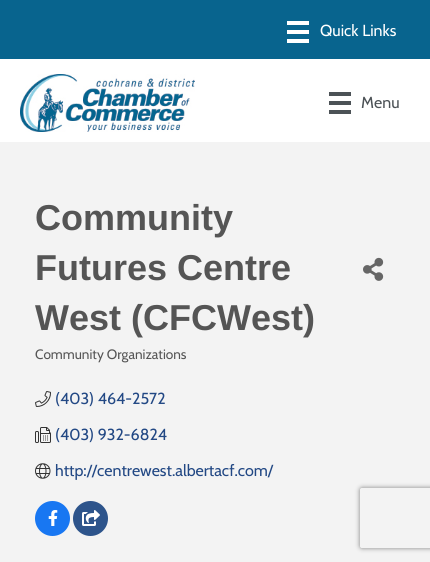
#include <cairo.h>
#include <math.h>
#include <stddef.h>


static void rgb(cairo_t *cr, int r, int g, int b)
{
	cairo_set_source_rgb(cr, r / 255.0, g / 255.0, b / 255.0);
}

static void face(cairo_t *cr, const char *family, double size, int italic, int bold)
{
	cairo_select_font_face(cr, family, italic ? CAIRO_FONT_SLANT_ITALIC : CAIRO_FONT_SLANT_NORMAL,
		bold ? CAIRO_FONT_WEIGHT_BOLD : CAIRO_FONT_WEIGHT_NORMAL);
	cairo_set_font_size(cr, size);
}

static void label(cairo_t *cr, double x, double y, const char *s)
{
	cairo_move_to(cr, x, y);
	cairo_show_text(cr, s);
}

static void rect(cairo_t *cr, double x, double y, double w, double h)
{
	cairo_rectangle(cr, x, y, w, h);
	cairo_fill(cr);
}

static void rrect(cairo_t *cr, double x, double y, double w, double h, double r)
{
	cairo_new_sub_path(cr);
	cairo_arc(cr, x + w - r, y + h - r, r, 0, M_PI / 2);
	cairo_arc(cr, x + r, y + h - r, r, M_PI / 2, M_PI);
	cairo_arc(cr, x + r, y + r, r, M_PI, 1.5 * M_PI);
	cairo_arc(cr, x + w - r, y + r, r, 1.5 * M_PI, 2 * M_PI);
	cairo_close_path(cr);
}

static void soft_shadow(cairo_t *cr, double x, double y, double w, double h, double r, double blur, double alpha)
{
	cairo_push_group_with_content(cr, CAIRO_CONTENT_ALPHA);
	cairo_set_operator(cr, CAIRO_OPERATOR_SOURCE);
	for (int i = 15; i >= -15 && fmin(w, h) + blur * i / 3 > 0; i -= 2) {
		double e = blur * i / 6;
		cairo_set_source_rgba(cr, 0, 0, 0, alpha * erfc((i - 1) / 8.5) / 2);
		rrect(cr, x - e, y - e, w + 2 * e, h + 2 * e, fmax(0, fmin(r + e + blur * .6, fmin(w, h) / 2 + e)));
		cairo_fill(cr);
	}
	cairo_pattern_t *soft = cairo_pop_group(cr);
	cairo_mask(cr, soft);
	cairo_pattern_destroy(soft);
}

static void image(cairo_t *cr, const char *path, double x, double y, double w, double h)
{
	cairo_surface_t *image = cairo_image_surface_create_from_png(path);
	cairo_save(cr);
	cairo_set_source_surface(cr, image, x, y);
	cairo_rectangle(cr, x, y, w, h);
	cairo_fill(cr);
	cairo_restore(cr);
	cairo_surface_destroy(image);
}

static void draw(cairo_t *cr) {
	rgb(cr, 8, 100, 142);
	cairo_paint(cr);
	rgb(cr, 255, 255, 255);
	rect(cr, 287, 21, 22, 4);
	rect(cr, 287, 30, 22, 4);
	rect(cr, 287, 39, 22, 4);
	face(cr, "Cabin", 16, 0, 0);
	label(cr, 320, 36, "Quick Links");
	rect(cr, 0, 59, 430, 83);
	image(cr, "image0.png", 20, 74, 175, 58);
	rgb(cr, 76, 82, 86);
	rect(cr, 329, 92, 22, 4);
	rect(cr, 329, 101, 22, 4);
	rect(cr, 329, 110, 22, 4);
	label(cr, 361, 108, "Menu");
	rgb(cr, 243, 243, 243);
	rect(cr, 0, 142, 430, 420);
	face(cr, "Liberation Sans", 36, 0, 1);
	rgb(cr, 85, 85, 85);
	label(cr, 35, 230, "Community");
	label(cr, 35, 280, "Futures Centre");
	label(cr, 35, 330, "West (CFCWest)");
	image(cr, "image1.png", 363, 257, 21, 24);
	face(cr, "Cabin", 13.6, 0, 0);
	label(cr, 35, 359, "Community Organizations");
	image(cr, "image2.png", 35, 391, 16, 16);
	face(cr, "Cabin", 16, 0, 0);
	rgb(cr, 34, 72, 132);
	label(cr, 55, 404, "(403) 464-2572");
	image(cr, "image3.png", 35, 427, 16, 16);
	label(cr, 55, 440, "(403) 932-6824");
	image(cr, "image4.png", 35, 463, 16, 16);
	label(cr, 55, 476, "http://centrewest.albertacf.com/");
	rgb(cr, 24, 119, 242);
	cairo_new_path(cr);
	cairo_arc(cr, 52.5, 518.5, 17.5, 0, 2 * M_PI);
	cairo_fill(cr);
	image(cr, "image5.png", 48, 510, 10, 16);
	rgb(cr, 45, 84, 139);
	cairo_arc(cr, 90.5, 518.5, 17.5, 0, 2 * M_PI);
	cairo_fill(cr);
	image(cr, "image6.png", 82, 510, 18, 16);
	cairo_save(cr);
	cairo_set_fill_rule(cr, CAIRO_FILL_RULE_EVEN_ODD);
	cairo_new_path(cr);
	cairo_move_to(cr, 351, 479);
	cairo_line_to(cr, 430, 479);
	cairo_line_to(cr, 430, 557);
	cairo_line_to(cr, 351, 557);
	cairo_close_path(cr);
	cairo_move_to(cr, 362, 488);
	cairo_line_to(cr, 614, 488);
	cairo_curve_to(cr, 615, 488, 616, 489, 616, 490);
	cairo_line_to(cr, 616, 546);
	cairo_curve_to(cr, 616, 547, 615, 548, 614, 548);
	cairo_line_to(cr, 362, 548);
	cairo_curve_to(cr, 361, 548, 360, 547, 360, 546);
	cairo_line_to(cr, 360, 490);
	cairo_curve_to(cr, 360, 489, 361, 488, 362, 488);
	cairo_close_path(cr);
	cairo_clip(cr);
	rgb(cr, 128, 128, 128);
	soft_shadow(cr, 360, 488, 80, 60, 2, 2.5, 1);
	cairo_restore(cr);
}

int main(void) {
	cairo_surface_t *surface = cairo_image_surface_create(CAIRO_FORMAT_RGB24, 430, 562);
	cairo_t *cr = cairo_create(surface);
	cairo_font_options_t *options = cairo_font_options_create();
	cairo_font_options_set_hint_metrics(options, CAIRO_HINT_METRICS_OFF);
	cairo_font_options_set_hint_style(options, CAIRO_HINT_STYLE_NONE);
	cairo_set_font_options(cr, options);
	cairo_set_miter_limit(cr, 4);
	draw(cr);
	cairo_surface_write_to_png(surface, "render.png");
	cairo_font_options_destroy(options);
	cairo_destroy(cr);
	cairo_surface_destroy(surface);
	return 0;
}
